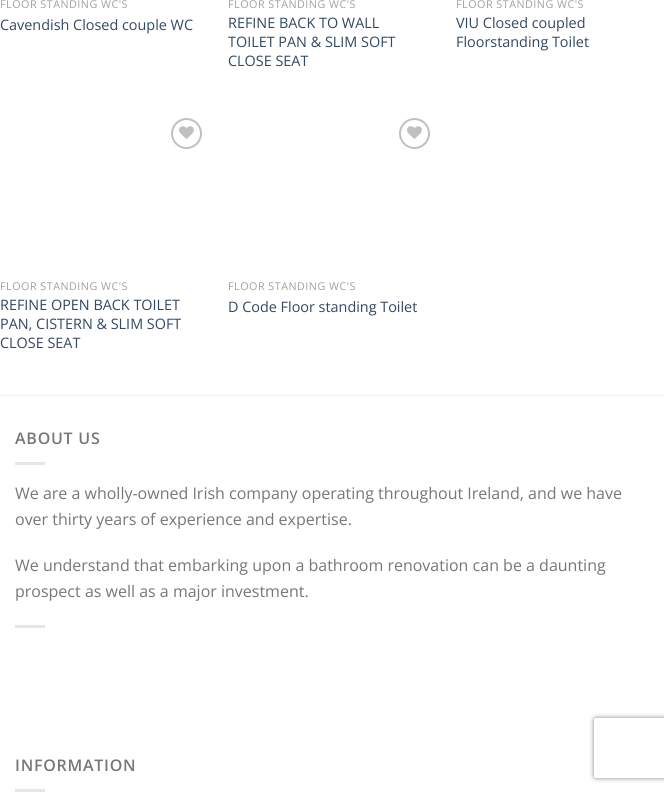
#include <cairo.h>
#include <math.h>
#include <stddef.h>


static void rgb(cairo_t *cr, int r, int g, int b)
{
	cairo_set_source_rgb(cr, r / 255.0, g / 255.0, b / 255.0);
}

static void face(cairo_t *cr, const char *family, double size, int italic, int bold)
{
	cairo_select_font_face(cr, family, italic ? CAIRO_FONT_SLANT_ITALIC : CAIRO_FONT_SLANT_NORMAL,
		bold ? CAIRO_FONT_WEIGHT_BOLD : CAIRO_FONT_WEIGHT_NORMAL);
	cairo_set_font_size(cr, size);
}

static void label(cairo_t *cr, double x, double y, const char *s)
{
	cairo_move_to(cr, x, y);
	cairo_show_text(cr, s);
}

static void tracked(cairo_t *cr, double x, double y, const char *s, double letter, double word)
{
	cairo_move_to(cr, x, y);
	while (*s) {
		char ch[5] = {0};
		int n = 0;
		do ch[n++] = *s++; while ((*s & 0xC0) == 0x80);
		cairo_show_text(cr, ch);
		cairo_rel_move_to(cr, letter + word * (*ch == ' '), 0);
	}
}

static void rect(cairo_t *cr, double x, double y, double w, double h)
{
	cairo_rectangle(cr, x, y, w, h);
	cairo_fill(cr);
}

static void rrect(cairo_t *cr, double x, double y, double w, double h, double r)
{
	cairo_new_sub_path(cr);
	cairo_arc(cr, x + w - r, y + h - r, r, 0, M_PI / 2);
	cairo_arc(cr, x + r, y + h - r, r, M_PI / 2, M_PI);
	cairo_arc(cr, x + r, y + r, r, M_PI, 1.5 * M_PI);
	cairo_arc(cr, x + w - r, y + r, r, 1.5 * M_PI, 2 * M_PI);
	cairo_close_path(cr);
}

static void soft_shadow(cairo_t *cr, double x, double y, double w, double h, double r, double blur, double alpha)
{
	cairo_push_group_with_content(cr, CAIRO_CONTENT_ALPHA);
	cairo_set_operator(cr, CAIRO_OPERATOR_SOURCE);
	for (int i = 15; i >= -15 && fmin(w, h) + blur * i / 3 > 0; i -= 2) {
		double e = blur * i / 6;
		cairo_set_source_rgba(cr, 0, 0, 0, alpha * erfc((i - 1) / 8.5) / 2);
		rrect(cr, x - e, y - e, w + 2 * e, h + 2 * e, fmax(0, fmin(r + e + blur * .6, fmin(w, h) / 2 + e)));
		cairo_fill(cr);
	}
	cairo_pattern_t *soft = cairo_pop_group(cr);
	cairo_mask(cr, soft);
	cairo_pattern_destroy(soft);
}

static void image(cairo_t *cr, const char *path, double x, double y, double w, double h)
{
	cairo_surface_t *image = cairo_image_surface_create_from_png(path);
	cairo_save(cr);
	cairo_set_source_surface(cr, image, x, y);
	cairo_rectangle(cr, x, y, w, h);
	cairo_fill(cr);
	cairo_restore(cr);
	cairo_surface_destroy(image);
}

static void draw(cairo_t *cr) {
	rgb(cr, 255, 255, 255);
	cairo_paint(cr);
	face(cr, "Open Sans", 10.75, 0, 0);
	rgb(cr, 160, 160, 160);
	tracked(cr, 0, 8, "FLOOR STANDING WC'S", 0.5, 0);
	face(cr, "Open Sans", 14.4, 0, 0);
	rgb(cr, 51, 72, 98);
	label(cr, 0, 30, "Cavendish Closed couple WC");
	face(cr, "Open Sans", 10.75, 0, 0);
	rgb(cr, 160, 160, 160);
	tracked(cr, 228, 8, "FLOOR STANDING WC'S", 0.5, 0);
	face(cr, "Open Sans", 14.4, 0, 0);
	rgb(cr, 51, 72, 98);
	label(cr, 228, 28, "REFINE BACK TO WALL");
	label(cr, 228, 47, "TOILET PAN & SLIM SOFT");
	label(cr, 228, 66, "CLOSE SEAT");
	face(cr, "Open Sans", 10.75, 0, 0);
	rgb(cr, 160, 160, 160);
	tracked(cr, 456, 8, "FLOOR STANDING WC'S", 0.5, 0);
	face(cr, "Open Sans", 14.4, 0, 0);
	rgb(cr, 51, 72, 98);
	label(cr, 456, 28, "VIU Closed coupled");
	label(cr, 456, 47, "Floorstanding Toilet");
	cairo_new_path(cr);
	cairo_arc(cr, 186.5, 133.5, 14.5, 0, 2 * M_PI);
	rgb(cr, 192, 192, 192);
	cairo_stroke(cr);
	image(cr, "image0.png", 179, 126, 15, 13);
	face(cr, "Open Sans", 10.75, 0, 0);
	rgb(cr, 160, 160, 160);
	tracked(cr, 0, 290, "FLOOR STANDING WC'S", 0.5, 0);
	face(cr, "Open Sans", 14.4, 0, 0);
	rgb(cr, 51, 72, 98);
	label(cr, 0, 310, "REFINE OPEN BACK TOILET");
	label(cr, 0, 329, "PAN, CISTERN & SLIM SOFT");
	label(cr, 0, 348, "CLOSE SEAT");
	cairo_new_path(cr);
	cairo_arc(cr, 414.5, 133.5, 14.5, 0, 2 * M_PI);
	rgb(cr, 192, 192, 192);
	cairo_stroke(cr);
	image(cr, "image0.png", 407, 126, 15, 13);
	face(cr, "Open Sans", 10.75, 0, 0);
	rgb(cr, 160, 160, 160);
	tracked(cr, 228, 290, "FLOOR STANDING WC'S", 0.5, 0);
	face(cr, "Open Sans", 14.4, 0, 0);
	rgb(cr, 51, 72, 98);
	label(cr, 228, 312, "D Code Floor standing Toilet");
	rgb(cr, 242, 242, 242);
	rect(cr, 0, 395, 664, 1);
	face(cr, "Open Sans SemiBold", 16, 0, 0);
	rgb(cr, 119, 119, 119);
	tracked(cr, 15, 444, "ABOUT US", 0.75, 0);
	rgb(cr, 230, 230, 230);
	rect(cr, 15, 462, 30, 3);
	face(cr, "Open Sans", 16, 0, 0);
	rgb(cr, 119, 119, 119);
	label(cr, 15, 499, "We are a wholly-owned Irish company operating throughout Ireland, and we have");
	label(cr, 15, 525, "over thirty years of experience and expertise.");
	label(cr, 15, 571, "We understand that embarking upon a bathroom renovation can be a daunting");
	label(cr, 15, 597, "prospect as well as a major investment.");
	rgb(cr, 230, 230, 230);
	rect(cr, 15, 625, 30, 3);
	face(cr, "Open Sans SemiBold", 16, 0, 0);
	rgb(cr, 119, 119, 119);
	tracked(cr, 15, 771, "INFORMATION", 0.75, 0);
	rgb(cr, 230, 230, 230);
	rect(cr, 15, 789, 30, 3);
	cairo_save(cr);
	cairo_set_fill_rule(cr, CAIRO_FILL_RULE_EVEN_ODD);
	cairo_new_path(cr);
	cairo_move_to(cr, 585, 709);
	cairo_line_to(cr, 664, 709);
	cairo_line_to(cr, 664, 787);
	cairo_line_to(cr, 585, 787);
	cairo_close_path(cr);
	cairo_move_to(cr, 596, 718);
	cairo_line_to(cr, 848, 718);
	cairo_curve_to(cr, 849, 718, 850, 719, 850, 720);
	cairo_line_to(cr, 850, 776);
	cairo_curve_to(cr, 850, 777, 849, 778, 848, 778);
	cairo_line_to(cr, 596, 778);
	cairo_curve_to(cr, 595, 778, 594, 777, 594, 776);
	cairo_line_to(cr, 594, 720);
	cairo_curve_to(cr, 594, 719, 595, 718, 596, 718);
	cairo_close_path(cr);
	cairo_clip(cr);
	rgb(cr, 128, 128, 128);
	soft_shadow(cr, 594, 718, 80, 60, 2, 2.5, 1);
	cairo_restore(cr);
}

int main(void) {
	cairo_surface_t *surface = cairo_image_surface_create(CAIRO_FORMAT_RGB24, 664, 792);
	cairo_t *cr = cairo_create(surface);
	cairo_font_options_t *options = cairo_font_options_create();
	cairo_font_options_set_hint_metrics(options, CAIRO_HINT_METRICS_OFF);
	cairo_font_options_set_hint_style(options, CAIRO_HINT_STYLE_NONE);
	cairo_set_font_options(cr, options);
	cairo_set_miter_limit(cr, 4);
	draw(cr);
	cairo_surface_write_to_png(surface, "render.png");
	cairo_font_options_destroy(options);
	cairo_destroy(cr);
	cairo_surface_destroy(surface);
	return 0;
}
